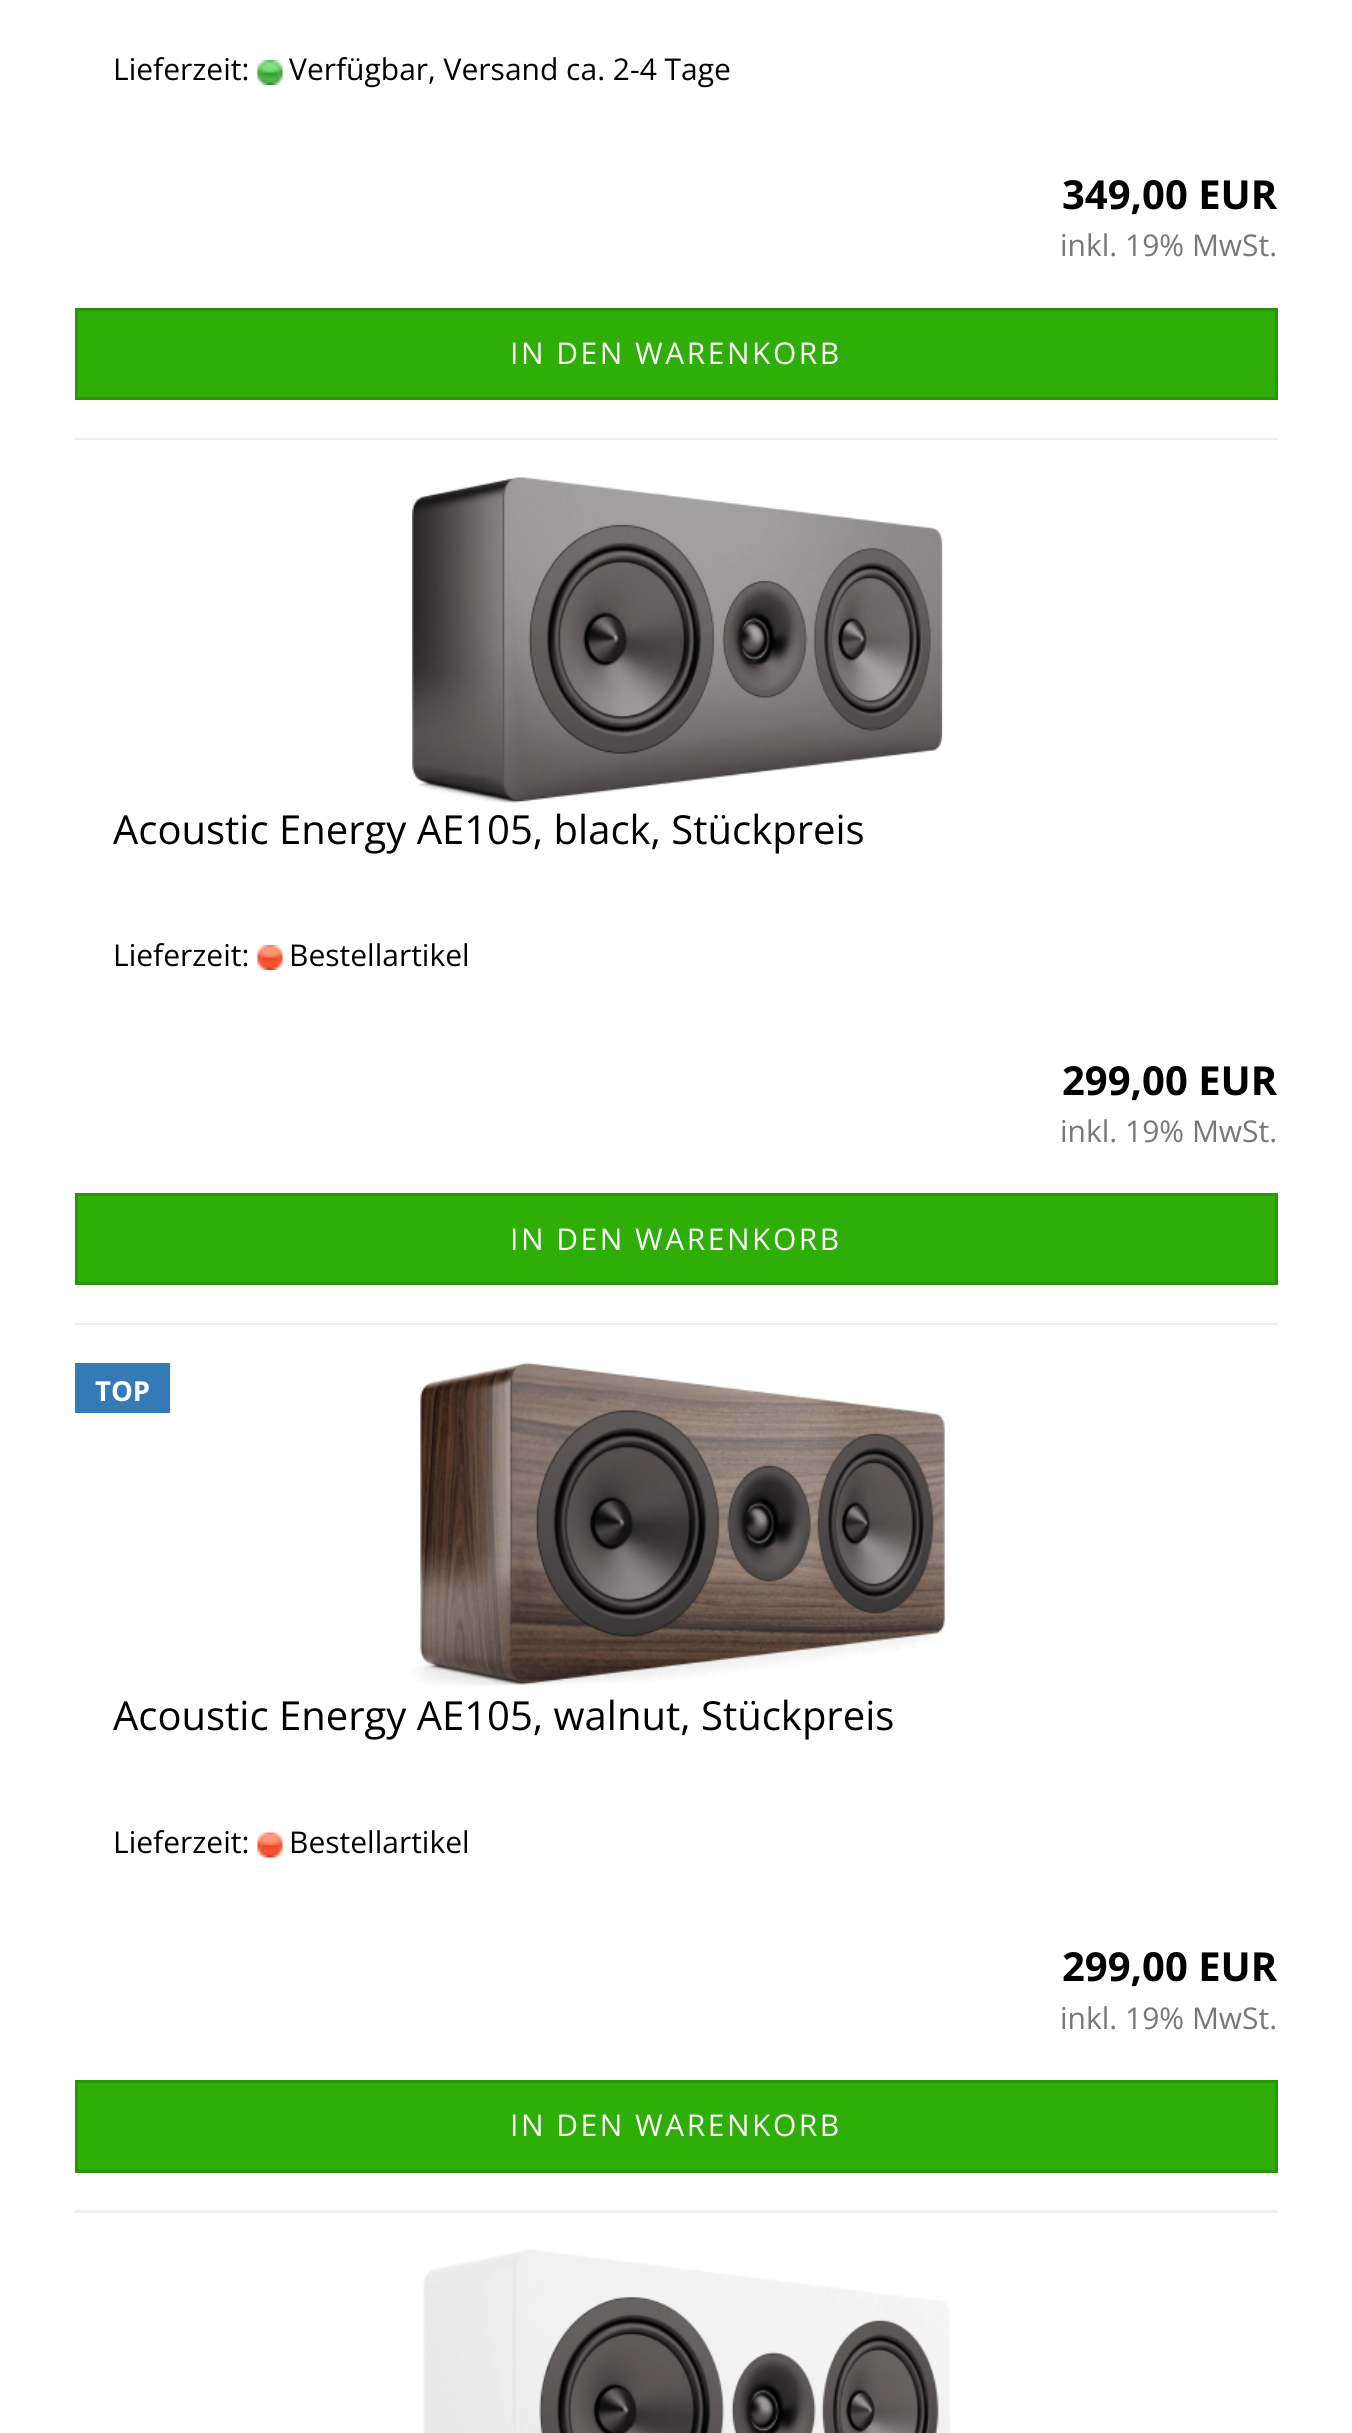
#include <cairo.h>
#include <math.h>
#include <stddef.h>


static void rgb(cairo_t *cr, int r, int g, int b)
{
	cairo_set_source_rgb(cr, r / 255.0, g / 255.0, b / 255.0);
}

static void face(cairo_t *cr, const char *family, double size, int italic, int bold)
{
	cairo_select_font_face(cr, family, italic ? CAIRO_FONT_SLANT_ITALIC : CAIRO_FONT_SLANT_NORMAL,
		bold ? CAIRO_FONT_WEIGHT_BOLD : CAIRO_FONT_WEIGHT_NORMAL);
	cairo_set_font_size(cr, size);
}

static void label(cairo_t *cr, double x, double y, const char *s)
{
	cairo_move_to(cr, x, y);
	cairo_show_text(cr, s);
}

static void tracked(cairo_t *cr, double x, double y, const char *s, double letter, double word)
{
	cairo_move_to(cr, x, y);
	while (*s) {
		char ch[5] = {0};
		int n = 0;
		do ch[n++] = *s++; while ((*s & 0xC0) == 0x80);
		cairo_show_text(cr, ch);
		cairo_rel_move_to(cr, letter + word * (*ch == ' '), 0);
	}
}

static void rect(cairo_t *cr, double x, double y, double w, double h)
{
	cairo_rectangle(cr, x, y, w, h);
	cairo_fill(cr);
}

static void image(cairo_t *cr, const char *path, double x, double y, double w, double h)
{
	cairo_surface_t *image = cairo_image_surface_create_from_png(path);
	cairo_save(cr);
	cairo_set_source_surface(cr, image, x, y);
	cairo_rectangle(cr, x, y, w, h);
	cairo_fill(cr);
	cairo_restore(cr);
	cairo_surface_destroy(image);
}

static void draw(cairo_t *cr) {
	rgb(cr, 255, 255, 255);
	cairo_paint(cr);
	rgb(cr, 238, 238, 238);
	rect(cr, 75, 438, 1203, 2);
	face(cr, "Open Sans", 30, 0, 0);
	rgb(cr, 0, 0, 0);
	label(cr, 113, 80, "Lieferzeit:");
	image(cr, "image0.png", 257, 60, 26, 25);
	label(cr, 289, 80, "Verfügbar, Versand ca. 2-4 Tage");
	face(cr, "Open Sans", 40, 0, 1);
	label(cr, 1062, 209, "349,00 EUR");
	face(cr, "Open Sans", 30, 0, 0);
	rgb(cr, 119, 119, 119);
	label(cr, 1060, 256, "inkl. 19% MwSt.");
	rgb(cr, 46, 174, 6);
	cairo_rectangle(cr, 76.5, 309.5, 1200, 89);
	cairo_fill_preserve(cr);
	rgb(cr, 39, 149, 5);
	cairo_set_line_width(cr, 3);
	cairo_stroke(cr);
	rgb(cr, 255, 255, 255);
	tracked(cr, 510, 364, "IN DEN WARENKORB", 2.5, 0);
	rgb(cr, 238, 238, 238);
	rect(cr, 75, 1323, 1203, 2);
	image(cr, "image1.png", 412, 477, 531, 326);
	face(cr, "Open Sans", 40, 0, 0);
	rgb(cr, 0, 0, 0);
	label(cr, 113, 844, "Acoustic Energy AE105, black, Stückpreis");
	face(cr, "Open Sans", 30, 0, 0);
	label(cr, 113, 966, "Lieferzeit:");
	image(cr, "image2.png", 257, 945, 26, 25);
	label(cr, 289, 966, "Bestellartikel");
	face(cr, "Open Sans", 40, 0, 1);
	label(cr, 1062, 1095, "299,00 EUR");
	face(cr, "Open Sans", 30, 0, 0);
	rgb(cr, 119, 119, 119);
	label(cr, 1060, 1142, "inkl. 19% MwSt.");
	rgb(cr, 46, 174, 6);
	cairo_rectangle(cr, 76.5, 1194.5, 1200, 89);
	cairo_fill_preserve(cr);
	rgb(cr, 39, 149, 5);
	cairo_stroke(cr);
	rgb(cr, 255, 255, 255);
	tracked(cr, 510, 1250, "IN DEN WARENKORB", 2.5, 0);
	rgb(cr, 238, 238, 238);
	rect(cr, 75, 2210, 1203, 3);
	rgb(cr, 51, 122, 183);
	rect(cr, 75, 1363, 95, 50);
	face(cr, "Open Sans", 27.5, 0, 1);
	rgb(cr, 255, 255, 255);
	label(cr, 95, 1401, "TOP");
	image(cr, "image3.png", 410, 1362, 536, 325);
	face(cr, "Open Sans", 40, 0, 0);
	rgb(cr, 0, 0, 0);
	label(cr, 113, 1730, "Acoustic Energy AE105, walnut, Stückpreis");
	face(cr, "Open Sans", 30, 0, 0);
	label(cr, 113, 1853, "Lieferzeit:");
	image(cr, "image4.png", 257, 1832, 26, 26);
	label(cr, 289, 1853, "Bestellartikel");
	face(cr, "Open Sans", 40, 0, 1);
	label(cr, 1062, 1981, "299,00 EUR");
	face(cr, "Open Sans", 30, 0, 0);
	rgb(cr, 119, 119, 119);
	label(cr, 1060, 2029, "inkl. 19% MwSt.");
	rgb(cr, 46, 174, 6);
	cairo_rectangle(cr, 76.5, 2081.5, 1200, 90);
	cairo_fill_preserve(cr);
	rgb(cr, 39, 149, 5);
	cairo_stroke(cr);
	rgb(cr, 255, 255, 255);
	tracked(cr, 510, 2136, "IN DEN WARENKORB", 2.5, 0);
	image(cr, "image5.png", 423, 2250, 527, 183);
}

int main(void) {
	cairo_surface_t *surface = cairo_image_surface_create(CAIRO_FORMAT_RGB24, 1352, 2433);
	cairo_t *cr = cairo_create(surface);
	cairo_font_options_t *options = cairo_font_options_create();
	cairo_font_options_set_hint_metrics(options, CAIRO_HINT_METRICS_OFF);
	cairo_font_options_set_hint_style(options, CAIRO_HINT_STYLE_NONE);
	cairo_set_font_options(cr, options);
	cairo_set_miter_limit(cr, 4);
	draw(cr);
	cairo_surface_write_to_png(surface, "render.png");
	cairo_font_options_destroy(options);
	cairo_destroy(cr);
	cairo_surface_destroy(surface);
	return 0;
}
